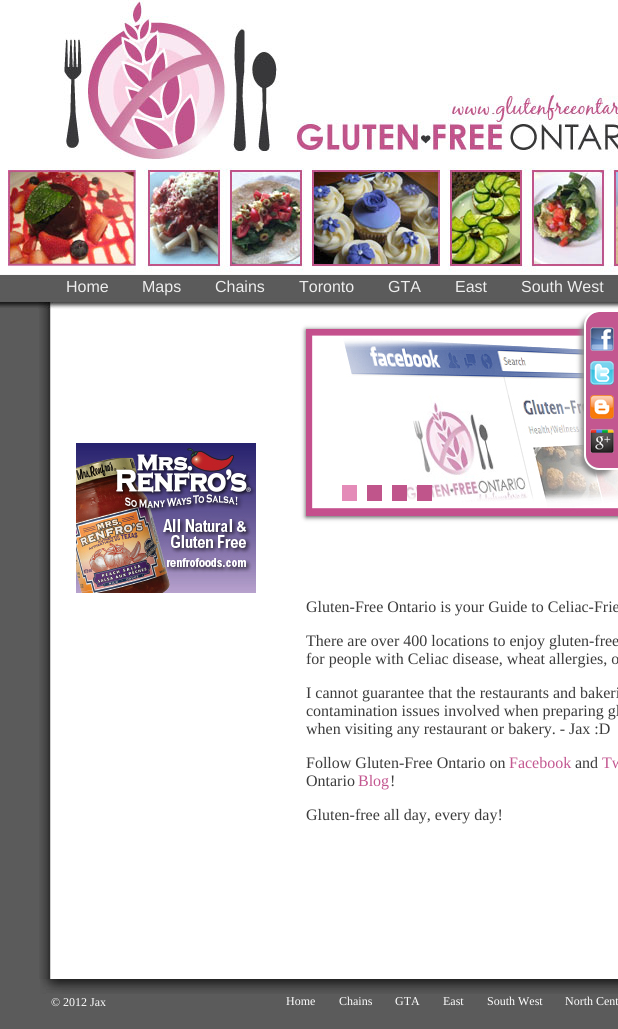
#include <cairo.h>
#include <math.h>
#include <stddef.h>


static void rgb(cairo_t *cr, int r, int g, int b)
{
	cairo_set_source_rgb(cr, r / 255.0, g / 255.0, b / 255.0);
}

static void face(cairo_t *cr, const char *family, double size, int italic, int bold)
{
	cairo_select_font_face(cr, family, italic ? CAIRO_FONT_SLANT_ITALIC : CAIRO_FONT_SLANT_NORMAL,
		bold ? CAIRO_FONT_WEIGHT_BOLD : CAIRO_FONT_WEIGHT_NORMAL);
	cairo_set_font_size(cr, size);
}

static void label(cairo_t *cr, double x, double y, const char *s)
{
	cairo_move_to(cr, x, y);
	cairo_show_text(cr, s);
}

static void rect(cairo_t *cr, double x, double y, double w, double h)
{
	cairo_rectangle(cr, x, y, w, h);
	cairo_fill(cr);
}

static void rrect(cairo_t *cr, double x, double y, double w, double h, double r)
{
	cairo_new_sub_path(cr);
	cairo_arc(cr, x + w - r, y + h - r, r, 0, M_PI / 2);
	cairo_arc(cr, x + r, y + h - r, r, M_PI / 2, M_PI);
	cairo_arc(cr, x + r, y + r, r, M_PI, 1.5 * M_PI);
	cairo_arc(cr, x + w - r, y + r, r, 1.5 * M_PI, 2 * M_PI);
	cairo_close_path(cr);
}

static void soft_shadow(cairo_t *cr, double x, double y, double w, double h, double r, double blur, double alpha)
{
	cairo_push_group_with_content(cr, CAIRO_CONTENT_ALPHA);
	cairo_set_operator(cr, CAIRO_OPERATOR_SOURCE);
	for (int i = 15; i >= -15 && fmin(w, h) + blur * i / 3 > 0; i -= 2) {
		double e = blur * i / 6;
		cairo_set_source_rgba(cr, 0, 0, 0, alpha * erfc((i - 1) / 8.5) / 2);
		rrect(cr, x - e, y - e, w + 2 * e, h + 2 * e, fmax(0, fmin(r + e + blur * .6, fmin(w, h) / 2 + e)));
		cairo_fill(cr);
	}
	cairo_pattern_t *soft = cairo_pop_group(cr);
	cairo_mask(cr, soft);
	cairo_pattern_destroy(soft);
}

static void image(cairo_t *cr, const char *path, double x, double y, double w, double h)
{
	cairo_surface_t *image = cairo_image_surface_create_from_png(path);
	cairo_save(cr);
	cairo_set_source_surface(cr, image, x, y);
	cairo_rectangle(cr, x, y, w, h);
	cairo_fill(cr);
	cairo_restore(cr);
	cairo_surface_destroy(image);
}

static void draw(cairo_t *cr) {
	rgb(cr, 91, 91, 91);
	cairo_paint(cr);
	image(cr, "image0.png", 0, 0, 618, 308);
	image(cr, "image1.png", 8, 0, 610, 272);
	face(cr, "Liberation Sans", 16, 0, 0);
	rgb(cr, 238, 238, 238);
	label(cr, 66, 292, "Home");
	label(cr, 142, 292, "Maps");
	label(cr, 215, 292, "Chains");
	label(cr, 299, 292, "Toronto");
	label(cr, 388, 292, "GTA");
	label(cr, 455, 292, "East");
	label(cr, 521, 292, "South West");
	image(cr, "image2.png", 38, 302, 580, 7);
	image(cr, "image3.png", 39, 309, 579, 670);
	image(cr, "image4.png", 76, 443, 180, 150);
	rgb(cr, 74, 74, 74);
	soft_shadow(cr, 306, 330, 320, 187, 0, 2.5, 1);
	image(cr, "image5.png", 306, 329, 312, 187);
	rgb(cr, 228, 139, 184);
	rect(cr, 342, 485, 15, 16);
	rgb(cr, 192, 85, 139);
	rect(cr, 367, 485, 15, 16);
	rect(cr, 392, 485, 15, 16);
	rect(cr, 417, 485, 15, 16);
	face(cr, "Liberation Serif", 16, 0, 0);
	rgb(cr, 60, 60, 60);
	label(cr, 306, 612, "Gluten-Free Ontario is your Guide to Celiac-Frie");
	label(cr, 306, 646, "There are over 400 locations to enjoy gluten-free");
	label(cr, 306, 664, "for people with Celiac disease, wheat allergies, o");
	label(cr, 306, 698, "I cannot guarantee that the restaurants and bakeri");
	label(cr, 306, 716, "contamination issues involved when preparing gl");
	label(cr, 306, 734, "when visiting any restaurant or bakery. - Jax :D");
	label(cr, 306, 768, "Follow Gluten-Free Ontario on");
	rgb(cr, 195, 87, 144);
	label(cr, 509, 768, "Facebook");
	rgb(cr, 60, 60, 60);
	label(cr, 575, 768, "and");
	rgb(cr, 195, 87, 144);
	label(cr, 602, 768, "Tw");
	rgb(cr, 60, 60, 60);
	label(cr, 306, 786, "Ontario");
	rgb(cr, 195, 87, 144);
	label(cr, 358, 786, "Blog");
	rgb(cr, 60, 60, 60);
	label(cr, 390, 786, "!");
	label(cr, 306, 820, "Gluten-free all day, every day!");
	image(cr, "image6.png", 40, 979, 578, 15);
	face(cr, "Liberation Serif", 12, 0, 0);
	rgb(cr, 255, 255, 255);
	label(cr, 51, 1006, "© 2012 Jax");
	label(cr, 286, 1005, "Home");
	label(cr, 339, 1005, "Chains");
	label(cr, 395, 1005, "GTA");
	label(cr, 443, 1005, "East");
	label(cr, 487, 1005, "South West");
	label(cr, 565, 1005, "North Cent");
	rgb(cr, 136, 136, 136);
	soft_shadow(cr, 581, 315, 34, 160, 15, 2.5, 1);
	rgb(cr, 195, 87, 144);
	cairo_new_path(cr);
	cairo_move_to(cr, 599, 312);
	cairo_line_to(cr, 618, 312);
	cairo_line_to(cr, 618, 468);
	cairo_line_to(cr, 599, 468);
	cairo_curve_to(cr, 592, 468, 586, 462, 586, 455);
	cairo_line_to(cr, 586, 325);
	cairo_curve_to(cr, 586, 318, 592, 312, 599, 312);
	cairo_close_path(cr);
	cairo_fill(cr);
	rgb(cr, 255, 255, 255);
	cairo_set_fill_rule(cr, CAIRO_FILL_RULE_EVEN_ODD);
	cairo_new_path(cr);
	cairo_move_to(cr, 599, 310);
	cairo_line_to(cr, 618, 310);
	cairo_line_to(cr, 618, 470);
	cairo_line_to(cr, 599, 470);
	cairo_curve_to(cr, 591, 470, 584, 463, 584, 455);
	cairo_line_to(cr, 584, 325);
	cairo_curve_to(cr, 584, 317, 591, 310, 599, 310);
	cairo_close_path(cr);
	cairo_move_to(cr, 599, 312);
	cairo_line_to(cr, 618, 312);
	cairo_line_to(cr, 618, 468);
	cairo_line_to(cr, 599, 468);
	cairo_curve_to(cr, 592, 468, 586, 462, 586, 455);
	cairo_line_to(cr, 586, 325);
	cairo_curve_to(cr, 586, 318, 592, 312, 599, 312);
	cairo_close_path(cr);
	cairo_fill(cr);
	image(cr, "image7.png", 590, 327, 24, 24);
	image(cr, "image8.png", 590, 361, 24, 24);
	image(cr, "image9.png", 590, 395, 24, 24);
	image(cr, "image10.png", 590, 429, 24, 24);
}

int main(void) {
	cairo_surface_t *surface = cairo_image_surface_create(CAIRO_FORMAT_RGB24, 618, 1029);
	cairo_t *cr = cairo_create(surface);
	cairo_font_options_t *options = cairo_font_options_create();
	cairo_font_options_set_hint_metrics(options, CAIRO_HINT_METRICS_OFF);
	cairo_font_options_set_hint_style(options, CAIRO_HINT_STYLE_NONE);
	cairo_set_font_options(cr, options);
	cairo_set_miter_limit(cr, 4);
	draw(cr);
	cairo_surface_write_to_png(surface, "render.png");
	cairo_font_options_destroy(options);
	cairo_destroy(cr);
	cairo_surface_destroy(surface);
	return 0;
}
